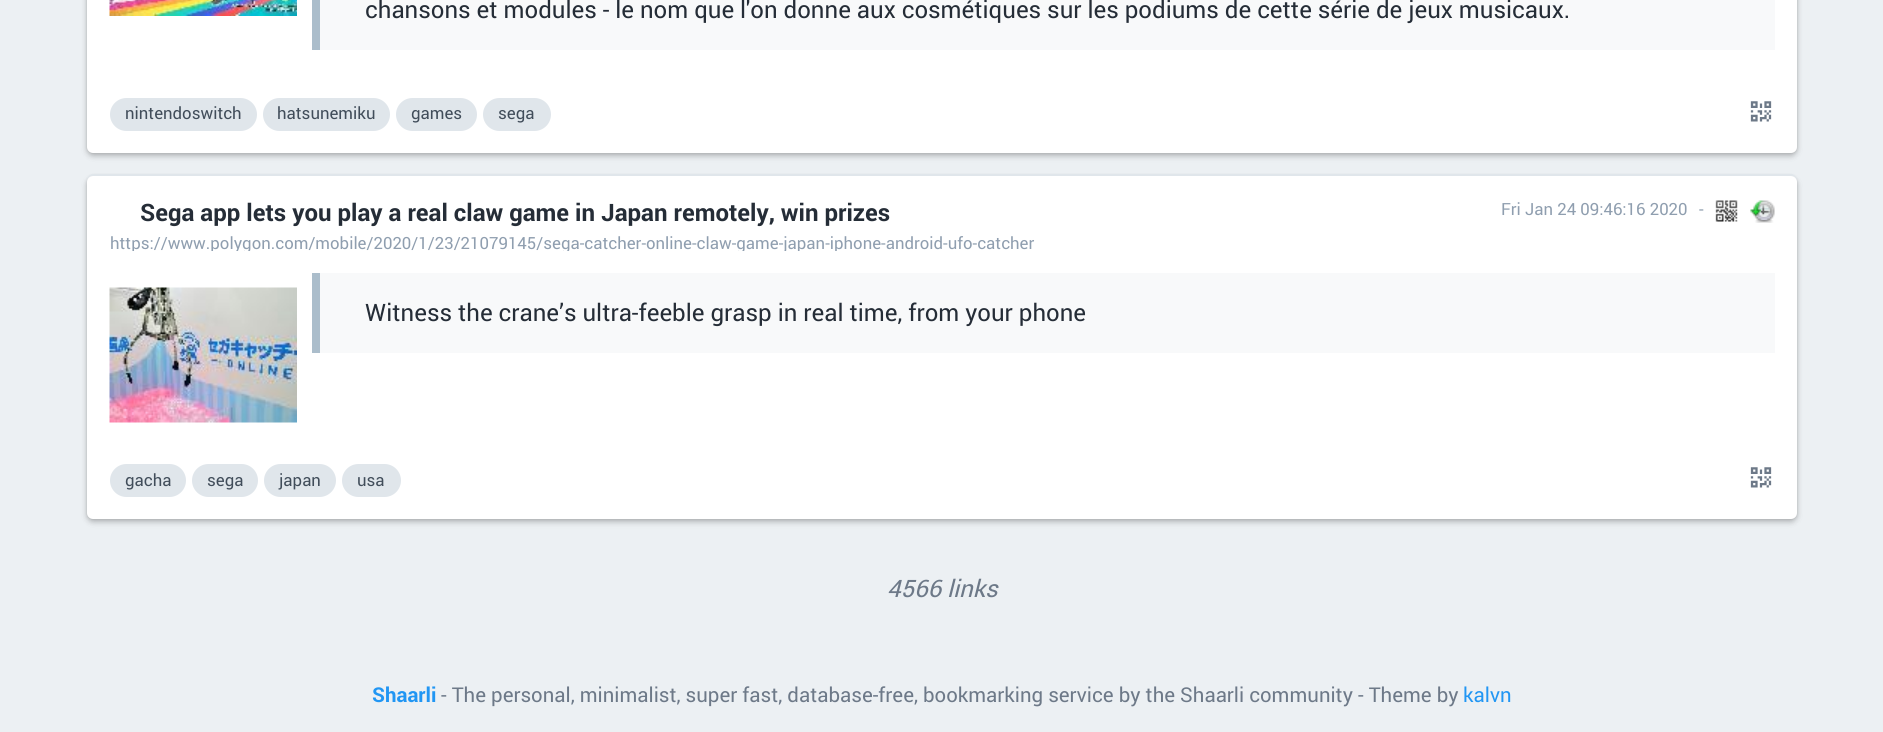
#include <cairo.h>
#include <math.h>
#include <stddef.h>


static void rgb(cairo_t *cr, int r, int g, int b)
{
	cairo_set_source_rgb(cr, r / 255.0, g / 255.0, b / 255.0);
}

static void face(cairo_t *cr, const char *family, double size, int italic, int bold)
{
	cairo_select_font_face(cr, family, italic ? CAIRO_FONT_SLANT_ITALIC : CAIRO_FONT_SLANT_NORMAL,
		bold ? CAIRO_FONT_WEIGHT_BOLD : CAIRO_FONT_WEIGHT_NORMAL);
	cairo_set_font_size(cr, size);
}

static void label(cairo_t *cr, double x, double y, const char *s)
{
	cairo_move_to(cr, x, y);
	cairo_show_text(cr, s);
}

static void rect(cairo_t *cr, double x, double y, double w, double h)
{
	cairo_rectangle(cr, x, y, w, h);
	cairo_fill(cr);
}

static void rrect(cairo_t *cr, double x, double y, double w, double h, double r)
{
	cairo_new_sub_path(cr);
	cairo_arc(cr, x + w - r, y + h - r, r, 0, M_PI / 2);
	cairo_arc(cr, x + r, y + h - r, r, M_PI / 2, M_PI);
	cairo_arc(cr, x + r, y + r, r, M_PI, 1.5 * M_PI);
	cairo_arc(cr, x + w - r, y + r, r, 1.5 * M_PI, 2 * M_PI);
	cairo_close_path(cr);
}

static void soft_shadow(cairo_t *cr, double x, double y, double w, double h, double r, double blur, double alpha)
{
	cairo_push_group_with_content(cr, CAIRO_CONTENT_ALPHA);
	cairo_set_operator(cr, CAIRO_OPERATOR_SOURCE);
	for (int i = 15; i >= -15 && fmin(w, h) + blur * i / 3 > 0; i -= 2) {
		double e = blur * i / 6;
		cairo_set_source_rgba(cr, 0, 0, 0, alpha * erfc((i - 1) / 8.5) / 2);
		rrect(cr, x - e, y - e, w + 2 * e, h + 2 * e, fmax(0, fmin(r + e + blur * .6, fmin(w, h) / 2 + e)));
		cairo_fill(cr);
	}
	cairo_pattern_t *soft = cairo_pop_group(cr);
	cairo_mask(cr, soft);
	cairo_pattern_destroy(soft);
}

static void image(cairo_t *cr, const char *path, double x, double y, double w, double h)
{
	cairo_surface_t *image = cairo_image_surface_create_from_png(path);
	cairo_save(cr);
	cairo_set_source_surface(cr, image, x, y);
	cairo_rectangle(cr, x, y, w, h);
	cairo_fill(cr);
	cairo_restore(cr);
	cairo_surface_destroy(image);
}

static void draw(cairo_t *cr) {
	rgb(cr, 236, 240, 243);
	cairo_paint(cr);
	rgb(cr, 0, 0, 0);
	soft_shadow(cr, 87, -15, 1710, 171, 6, 3, 0.24);
	soft_shadow(cr, 87, -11, 1710, 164, 6, 1.5, 0.12);
	rgb(cr, 255, 255, 255);
	rrect(cr, 87, -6, 1710, 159, 6);
	cairo_fill(cr);
	image(cr, "image0.png", 109, 0, 188, 16);
	rgb(cr, 248, 249, 250);
	rect(cr, 320, 0, 1455, 50);
	rgb(cr, 171, 189, 203);
	rect(cr, 312, 0, 8, 50);
	face(cr, "Roboto", 24, 0, 0);
	rgb(cr, 37, 45, 55);
	label(cr, 365, 18, "chansons et modules - le nom que l'on donne aux cosmétiques sur les podiums de cette série de jeux musicaux.");
	rgb(cr, 224, 230, 235);
	rrect(cr, 110, 98, 147, 33, 16.5);
	cairo_fill(cr);
	face(cr, "Roboto", 16.8, 0, 0);
	rgb(cr, 65, 77, 90);
	label(cr, 125, 119, "nintendoswitch");
	rgb(cr, 224, 230, 235);
	rrect(cr, 263, 98, 127, 33, 16.5);
	cairo_fill(cr);
	rgb(cr, 65, 77, 90);
	label(cr, 277, 119, "hatsunemiku");
	rgb(cr, 224, 230, 235);
	rrect(cr, 396, 98, 81, 33, 16.5);
	cairo_fill(cr);
	rgb(cr, 65, 77, 90);
	label(cr, 411, 119, "games");
	rgb(cr, 224, 230, 235);
	rrect(cr, 483, 98, 68, 33, 16.5);
	cairo_fill(cr);
	rgb(cr, 65, 77, 90);
	label(cr, 498, 119, "sega");
	image(cr, "image1.png", 1750, 101, 22, 21);
	rgb(cr, 0, 0, 0);
	soft_shadow(cr, 87, 179, 1710, 343, 6, 3, 0.24);
	soft_shadow(cr, 87, 176, 1710, 343, 6, 1.5, 0.12);
	rgb(cr, 224, 230, 235);
	cairo_new_path(cr);
	cairo_move_to(cr, 93, 174);
	cairo_curve_to(cr, 89, 174, 87, 178, 87, 182);
	cairo_curve_to(cr, 87, 178, 90, 176, 93, 176);
	cairo_line_to(cr, 1791, 176);
	cairo_curve_to(cr, 1794, 176, 1797, 178, 1797, 182);
	cairo_curve_to(cr, 1797, 178, 1795, 174, 1791, 174);
	cairo_close_path(cr);
	cairo_fill(cr);
	rgb(cr, 255, 255, 255);
	rrect(cr, 87, 176, 1710, 343, 6);
	cairo_fill(cr);
	face(cr, "Roboto", 24, 0, 1);
	rgb(cr, 37, 45, 55);
	label(cr, 140, 221, "Sega app lets you play a real claw game in Japan remotely, win prizes");
	cairo_save(cr);
	cairo_rectangle(cr, 110, 234, 1095, 17);
	cairo_clip(cr);
	face(cr, "Roboto", 16.8, 0, 0);
	rgb(cr, 143, 158, 175);
	label(cr, 110, 249, "https://www.polygon.com/mobile/2020/1/23/21079145/sega-catcher-online-claw-game-japan-iphone-android-ufo-catcher");
	cairo_restore(cr);
	face(cr, "Roboto", 16.8, 0, 0);
	rgb(cr, 143, 158, 175);
	label(cr, 1501, 215, "Fri Jan 24 09:46:16 2020");
	label(cr, 1699, 215, "-");
	image(cr, "image2.png", 1715, 200, 23, 22);
	image(cr, "image3.png", 1750, 200, 25, 23);
	image(cr, "image4.png", 109, 287, 188, 136);
	rgb(cr, 248, 249, 250);
	rect(cr, 320, 273, 1455, 80);
	rgb(cr, 171, 189, 203);
	rect(cr, 312, 273, 8, 80);
	face(cr, "Roboto", 24, 0, 0);
	rgb(cr, 37, 45, 55);
	label(cr, 365, 321, "Witness the crane’s ultra-feeble grasp in real time, from your phone");
	rgb(cr, 224, 230, 235);
	rrect(cr, 110, 464, 76, 33, 16.5);
	cairo_fill(cr);
	face(cr, "Roboto", 16.8, 0, 0);
	rgb(cr, 65, 77, 90);
	label(cr, 125, 486, "gacha");
	rgb(cr, 224, 230, 235);
	rrect(cr, 192, 464, 66, 33, 16.5);
	cairo_fill(cr);
	rgb(cr, 65, 77, 90);
	label(cr, 207, 486, "sega");
	rgb(cr, 224, 230, 235);
	rrect(cr, 264, 464, 72, 33, 16.5);
	cairo_fill(cr);
	rgb(cr, 65, 77, 90);
	label(cr, 279, 486, "japan");
	rgb(cr, 224, 230, 235);
	rrect(cr, 342, 464, 59, 33, 16.5);
	cairo_fill(cr);
	rgb(cr, 65, 77, 90);
	label(cr, 357, 486, "usa");
	image(cr, "image1.png", 1750, 467, 22, 21);
	face(cr, "Roboto", 24, 1, 0);
	rgb(cr, 109, 121, 136);
	label(cr, 887, 597, "4566 links");
	face(cr, "Roboto", 20.4, 0, 1);
	rgb(cr, 33, 150, 243);
	label(cr, 372, 702, "Shaarli");
	face(cr, "Roboto", 20.4, 0, 0);
	rgb(cr, 109, 121, 136);
	label(cr, 441, 702, "- The personal, minimalist, super fast, database-free, bookmarking service by the Shaarli community");
	label(cr, 1358, 702, "- Theme by");
	rgb(cr, 33, 150, 243);
	label(cr, 1463, 702, "kalvn");
}

int main(void) {
	cairo_surface_t *surface = cairo_image_surface_create(CAIRO_FORMAT_RGB24, 1883, 732);
	cairo_t *cr = cairo_create(surface);
	cairo_font_options_t *options = cairo_font_options_create();
	cairo_font_options_set_hint_metrics(options, CAIRO_HINT_METRICS_OFF);
	cairo_font_options_set_hint_style(options, CAIRO_HINT_STYLE_NONE);
	cairo_set_font_options(cr, options);
	cairo_set_miter_limit(cr, 4);
	draw(cr);
	cairo_surface_write_to_png(surface, "render.png");
	cairo_font_options_destroy(options);
	cairo_destroy(cr);
	cairo_surface_destroy(surface);
	return 0;
}
